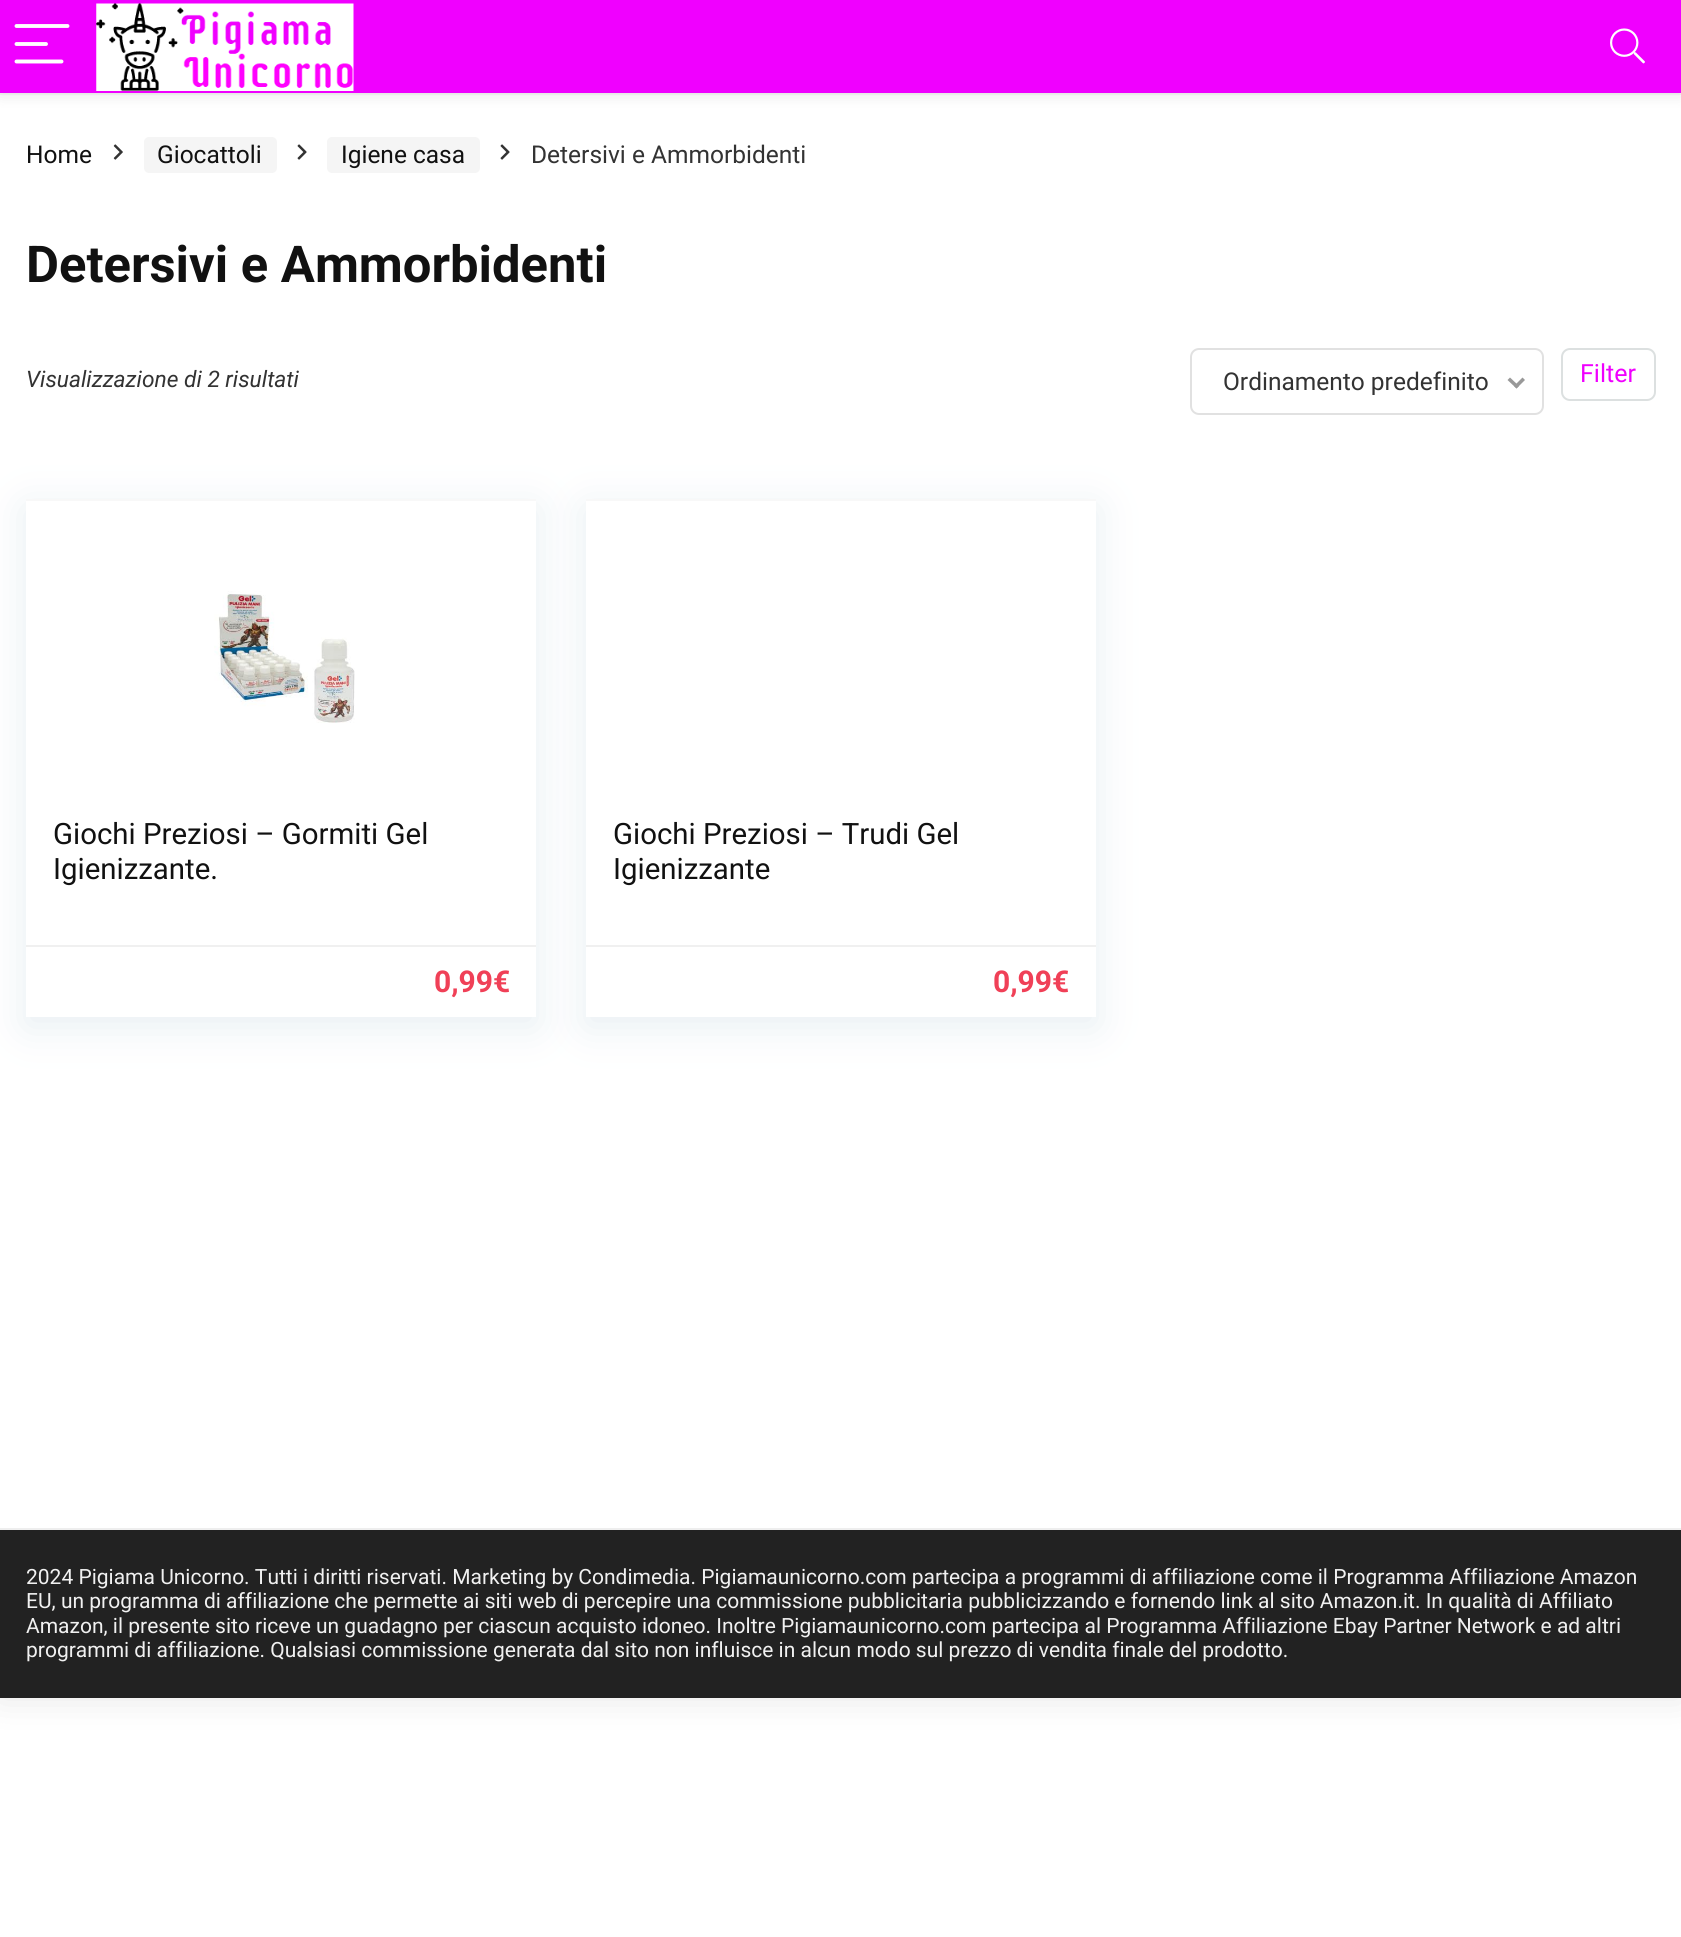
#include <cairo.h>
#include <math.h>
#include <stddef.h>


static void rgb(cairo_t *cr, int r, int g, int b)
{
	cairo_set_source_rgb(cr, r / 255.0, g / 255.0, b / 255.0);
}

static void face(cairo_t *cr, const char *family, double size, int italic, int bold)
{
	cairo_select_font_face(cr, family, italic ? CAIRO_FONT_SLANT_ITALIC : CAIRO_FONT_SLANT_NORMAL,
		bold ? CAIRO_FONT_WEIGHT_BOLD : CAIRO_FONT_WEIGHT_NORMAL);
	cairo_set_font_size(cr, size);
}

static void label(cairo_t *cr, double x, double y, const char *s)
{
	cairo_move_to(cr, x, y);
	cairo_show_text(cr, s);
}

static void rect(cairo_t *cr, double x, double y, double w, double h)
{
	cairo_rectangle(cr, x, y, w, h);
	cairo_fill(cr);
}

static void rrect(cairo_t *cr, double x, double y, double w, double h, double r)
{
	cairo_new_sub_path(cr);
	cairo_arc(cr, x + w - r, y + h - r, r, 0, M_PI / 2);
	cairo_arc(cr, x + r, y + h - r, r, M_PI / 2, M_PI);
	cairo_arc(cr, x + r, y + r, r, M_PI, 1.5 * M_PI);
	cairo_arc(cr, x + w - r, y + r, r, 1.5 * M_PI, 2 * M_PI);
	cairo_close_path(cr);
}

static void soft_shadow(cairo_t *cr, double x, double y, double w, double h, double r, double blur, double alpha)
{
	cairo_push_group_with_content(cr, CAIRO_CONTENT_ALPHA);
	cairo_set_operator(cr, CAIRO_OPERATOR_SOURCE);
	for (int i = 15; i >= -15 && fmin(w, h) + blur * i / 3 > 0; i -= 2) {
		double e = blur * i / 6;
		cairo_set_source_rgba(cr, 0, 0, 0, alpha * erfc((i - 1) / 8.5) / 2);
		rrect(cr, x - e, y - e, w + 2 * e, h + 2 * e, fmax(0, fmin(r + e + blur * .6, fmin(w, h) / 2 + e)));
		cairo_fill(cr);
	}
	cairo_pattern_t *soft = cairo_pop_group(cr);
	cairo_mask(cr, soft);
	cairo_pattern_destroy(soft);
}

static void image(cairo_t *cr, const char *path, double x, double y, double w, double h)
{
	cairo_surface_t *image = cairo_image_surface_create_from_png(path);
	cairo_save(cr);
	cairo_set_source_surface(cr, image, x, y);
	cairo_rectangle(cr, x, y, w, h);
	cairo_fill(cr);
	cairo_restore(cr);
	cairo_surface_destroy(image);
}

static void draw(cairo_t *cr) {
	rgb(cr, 255, 255, 255);
	cairo_paint(cr);
	rgb(cr, 0, 0, 0);
	soft_shadow(cr, 0, 0, 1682, 1698, 0, 17.5, 0.1);
	rgb(cr, 255, 255, 255);
	rect(cr, 0, 95, 1681, 1433);
	cairo_rectangle(cr, -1, -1, 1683, 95);
	rgb(cr, 247, 247, 247);
	cairo_stroke(cr);
	rgb(cr, 0, 0, 0);
	soft_shadow(cr, 0, 2, 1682, 93, 0, 7, 0.1);
	rgb(cr, 240, 0, 255);
	rect(cr, 0, 0, 1681, 93);
	cairo_new_path(cr);
	cairo_move_to(cr, 16.5, 26);
	cairo_line_to(cr, 67.5, 26);
	cairo_move_to(cr, 16.5, 44);
	cairo_line_to(cr, 46, 44);
	cairo_move_to(cr, 16.5, 61.5);
	cairo_line_to(cr, 61.5, 61.5);
	rgb(cr, 255, 255, 255);
	cairo_set_line_width(cr, 3.9);
	cairo_set_line_cap(cr, CAIRO_LINE_CAP_ROUND);
	cairo_stroke(cr);
	image(cr, "image0.png", 96, 3, 258, 88);
	image(cr, "image1.png", 1610, 28, 35, 36);
	face(cr, "Roboto", 24.5, 0, 0);
	rgb(cr, 17, 17, 17);
	label(cr, 26, 163, "Home");
	image(cr, "image2.png", 113, 144, 10, 16);
	rgb(cr, 245, 245, 245);
	rrect(cr, 144, 137, 133, 36, 5);
	cairo_fill(cr);
	rgb(cr, 17, 17, 17);
	label(cr, 157, 163, "Giocattoli");
	image(cr, "image3.png", 297, 144, 10, 16);
	rgb(cr, 245, 245, 245);
	rrect(cr, 327, 137, 153, 36, 5);
	cairo_fill(cr);
	rgb(cr, 17, 17, 17);
	label(cr, 341, 163, "Igiene casa");
	image(cr, "image3.png", 500, 144, 10, 16);
	rgb(cr, 51, 51, 51);
	label(cr, 531, 163, "Detersivi e Ammorbidenti");
	face(cr, "Roboto", 50.75, 0, 1);
	rgb(cr, 17, 17, 17);
	label(cr, 26, 282, "Detersivi e Ammorbidenti");
	face(cr, "Roboto", 22.75, 1, 0);
	rgb(cr, 51, 51, 51);
	label(cr, 26, 387, "Visualizzazione di 2 risultati");
	rrect(cr, 1191, 349, 352, 65, 8);
	rgb(cr, 225, 225, 225);
	cairo_set_line_width(cr, 2);
	cairo_set_line_cap(cr, CAIRO_LINE_CAP_BUTT);
	cairo_stroke(cr);
	face(cr, "Roboto", 24.5, 0, 0);
	rgb(cr, 51, 51, 51);
	label(cr, 1223, 390, "Ordinamento predefinito");
	rgb(cr, 153, 153, 153);
	cairo_new_path(cr);
	cairo_move_to(cr, 1522.5, 377.5);
	cairo_line_to(cr, 1525, 380);
	cairo_line_to(cr, 1516.5, 388.5);
	cairo_line_to(cr, 1514, 386);
	cairo_close_path(cr);
	cairo_fill(cr);
	cairo_new_path(cr);
	cairo_move_to(cr, 1510, 377.5);
	cairo_line_to(cr, 1519, 386);
	cairo_line_to(cr, 1516.5, 388.5);
	cairo_line_to(cr, 1507.5, 380);
	cairo_close_path(cr);
	cairo_fill(cr);
	rrect(cr, 1562, 349, 93, 51, 8);
	rgb(cr, 220, 224, 224);
	cairo_stroke(cr);
	face(cr, "Roboto", 25, 0, 0);
	rgb(cr, 240, 0, 255);
	label(cr, 1580, 382, "Filter");
	rgb(cr, 188, 207, 219);
	soft_shadow(cr, 26, 508, 510, 518, 0, 20, 0.35);
	rgb(cr, 255, 255, 255);
	rect(cr, 26, 501, 510, 516);
	rgb(cr, 248, 248, 248);
	rect(cr, 26, 499, 510, 2);
	image(cr, "image4.png", 214, 591, 141, 132);
	face(cr, "Roboto", 29.4, 0, 0);
	rgb(cr, 17, 17, 17);
	label(cr, 53, 844, "Giochi Preziosi – Gormiti Gel");
	label(cr, 53, 879, "Igienizzante.");
	rgb(cr, 240, 240, 240);
	rect(cr, 26, 945, 510, 2);
	face(cr, "Roboto", 30, 0, 1);
	rgb(cr, 240, 64, 87);
	label(cr, 434, 992, "0,99€");
	rgb(cr, 188, 207, 219);
	soft_shadow(cr, 586, 508, 510, 518, 0, 20, 0.35);
	rgb(cr, 255, 255, 255);
	rect(cr, 586, 501, 510, 516);
	rgb(cr, 248, 248, 248);
	rect(cr, 586, 499, 510, 2);
	face(cr, "Roboto", 29.4, 0, 0);
	rgb(cr, 17, 17, 17);
	label(cr, 613, 844, "Giochi Preziosi – Trudi Gel");
	label(cr, 613, 879, "Igienizzante");
	rgb(cr, 240, 240, 240);
	rect(cr, 586, 945, 510, 2);
	face(cr, "Roboto", 30, 0, 1);
	rgb(cr, 240, 64, 87);
	label(cr, 993, 992, "0,99€");
	rgb(cr, 238, 238, 238);
	rect(cr, 0, 1528, 1681, 2);
	rgb(cr, 34, 34, 34);
	rect(cr, 0, 1530, 1681, 168);
	face(cr, "Roboto", 21, 0, 0);
	rgb(cr, 241, 241, 241);
	label(cr, 26, 1584, "2024 Pigiama Unicorno. Tutti i diritti riservati. Marketing by Condimedia. Pigiamaunicorno.com partecipa a programmi di affiliazione come il Programma Affiliazione Amazon");
	label(cr, 26, 1608, "EU, un programma di affiliazione che permette ai siti web di percepire una commissione pubblicitaria pubblicizzando e fornendo link al sito Amazon.it. In qualità di Affiliato");
	label(cr, 26, 1633, "Amazon, il presente sito riceve un guadagno per ciascun acquisto idoneo. Inoltre Pigiamaunicorno.com partecipa al Programma Affiliazione Ebay Partner Network e ad altri");
	label(cr, 26, 1657, "programmi di affiliazione. Qualsiasi commissione generata dal sito non influisce in alcun modo sul prezzo di vendita finale del prodotto.");
}

int main(void) {
	cairo_surface_t *surface = cairo_image_surface_create(CAIRO_FORMAT_RGB24, 1681, 1937);
	cairo_t *cr = cairo_create(surface);
	cairo_font_options_t *options = cairo_font_options_create();
	cairo_font_options_set_hint_metrics(options, CAIRO_HINT_METRICS_OFF);
	cairo_font_options_set_hint_style(options, CAIRO_HINT_STYLE_NONE);
	cairo_set_font_options(cr, options);
	cairo_set_miter_limit(cr, 4);
	draw(cr);
	cairo_surface_write_to_png(surface, "render.png");
	cairo_font_options_destroy(options);
	cairo_destroy(cr);
	cairo_surface_destroy(surface);
	return 0;
}
